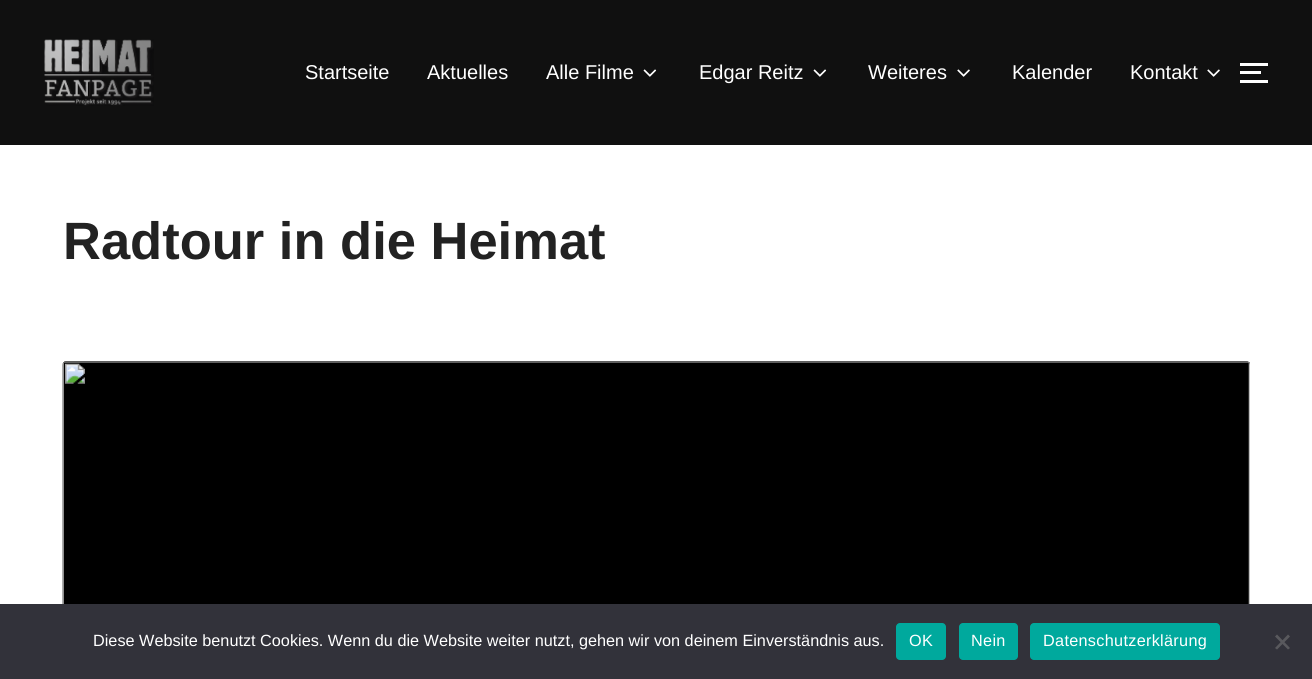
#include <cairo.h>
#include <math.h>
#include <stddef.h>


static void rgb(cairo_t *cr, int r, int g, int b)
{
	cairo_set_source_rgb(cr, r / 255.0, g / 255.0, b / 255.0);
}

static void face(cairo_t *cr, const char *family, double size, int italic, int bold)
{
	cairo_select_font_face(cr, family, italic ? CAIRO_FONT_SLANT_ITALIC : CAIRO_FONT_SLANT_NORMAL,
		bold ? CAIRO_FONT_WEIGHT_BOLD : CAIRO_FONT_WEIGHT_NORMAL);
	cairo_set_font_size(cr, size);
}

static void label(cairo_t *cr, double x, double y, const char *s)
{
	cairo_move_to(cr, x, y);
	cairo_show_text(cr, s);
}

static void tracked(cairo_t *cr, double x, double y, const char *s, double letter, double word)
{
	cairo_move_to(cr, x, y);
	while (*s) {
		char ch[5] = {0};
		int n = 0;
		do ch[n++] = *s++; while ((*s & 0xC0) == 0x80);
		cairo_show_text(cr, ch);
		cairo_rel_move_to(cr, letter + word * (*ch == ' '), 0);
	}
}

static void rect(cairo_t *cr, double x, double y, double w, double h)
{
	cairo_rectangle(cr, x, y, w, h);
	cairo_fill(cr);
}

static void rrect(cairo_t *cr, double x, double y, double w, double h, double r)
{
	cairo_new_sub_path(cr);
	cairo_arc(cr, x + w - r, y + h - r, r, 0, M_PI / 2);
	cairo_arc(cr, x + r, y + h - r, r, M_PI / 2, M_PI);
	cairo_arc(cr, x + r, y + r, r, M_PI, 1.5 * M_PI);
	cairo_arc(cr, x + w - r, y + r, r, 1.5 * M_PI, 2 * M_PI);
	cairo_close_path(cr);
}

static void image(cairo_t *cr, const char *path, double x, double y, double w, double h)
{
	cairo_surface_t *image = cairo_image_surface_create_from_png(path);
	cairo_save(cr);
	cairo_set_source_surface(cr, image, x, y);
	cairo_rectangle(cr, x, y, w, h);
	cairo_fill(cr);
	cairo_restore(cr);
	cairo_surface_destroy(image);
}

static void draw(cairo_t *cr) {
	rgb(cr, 255, 255, 255);
	cairo_paint(cr);
	rgb(cr, 16, 16, 16);
	rect(cr, 0, 0, 1312, 145);
	image(cr, "image0.png", 44, 39, 110, 67);
	face(cr, "Liberation Sans", 20, 0, 0);
	rgb(cr, 255, 255, 255);
	label(cr, 305, 79, "Startseite");
	label(cr, 427, 79, "Aktuelles");
	label(cr, 546, 79, "Alle Filme");
	image(cr, "image1.png", 643, 69, 14, 8);
	label(cr, 699, 79, "Edgar Reitz");
	image(cr, "image1.png", 813, 69, 14, 8);
	label(cr, 868, 79, "Weiteres");
	image(cr, "image2.png", 957, 69, 13, 8);
	label(cr, 1012, 79, "Kalender");
	label(cr, 1130, 79, "Kontakt");
	image(cr, "image2.png", 1207, 69, 13, 8);
	rect(cr, 1240, 63, 28, 3);
	rect(cr, 1240, 71, 21, 3);
	rect(cr, 1240, 80, 28, 3);
	face(cr, "Liberation Sans", 52.5, 0, 1);
	rgb(cr, 34, 34, 34);
	label(cr, 63, 259, "Radtour in die Heimat");
	image(cr, "image3.png", 62, 361, 1188, 243);
	rgb(cr, 50, 50, 58);
	rect(cr, 0, 604, 1312, 75);
	face(cr, "Liberation Sans", 16.25, 0, 0);
	rgb(cr, 255, 255, 255);
	label(cr, 93, 646, "Diese Website benutzt Cookies. Wenn du die Website weiter nutzt, gehen wir von deinem Einverständnis aus.");
	rgb(cr, 0, 169, 157);
	rrect(cr, 896, 623, 50, 37, 4);
	cairo_fill(cr);
	rgb(cr, 255, 255, 255);
	tracked(cr, 909, 646, "OK", 0.3, 0);
	rgb(cr, 0, 169, 157);
	rrect(cr, 959, 623, 59, 37, 4);
	cairo_fill(cr);
	rgb(cr, 255, 255, 255);
	tracked(cr, 971, 646, "Nein", 0.3, 0);
	rgb(cr, 0, 169, 157);
	rrect(cr, 1030, 623, 190, 37, 4);
	cairo_fill(cr);
	rgb(cr, 255, 255, 255);
	tracked(cr, 1043, 646, "Datenschutzerklärung", 0.3, 0);
	rgb(cr, 89, 89, 93);
	cairo_new_path(cr);
	cairo_move_to(cr, 1288, 634.5);
	cairo_line_to(cr, 1290, 636.5);
	cairo_line_to(cr, 1277, 649.5);
	cairo_line_to(cr, 1275, 648);
	cairo_close_path(cr);
	cairo_fill(cr);
	cairo_new_path(cr);
	cairo_move_to(cr, 1275, 636.5);
	cairo_line_to(cr, 1277, 634.5);
	cairo_line_to(cr, 1290, 648);
	cairo_line_to(cr, 1288, 649.5);
	cairo_close_path(cr);
	cairo_fill(cr);
}

int main(void) {
	cairo_surface_t *surface = cairo_image_surface_create(CAIRO_FORMAT_RGB24, 1312, 679);
	cairo_t *cr = cairo_create(surface);
	cairo_font_options_t *options = cairo_font_options_create();
	cairo_font_options_set_hint_metrics(options, CAIRO_HINT_METRICS_OFF);
	cairo_font_options_set_hint_style(options, CAIRO_HINT_STYLE_NONE);
	cairo_set_font_options(cr, options);
	cairo_set_miter_limit(cr, 4);
	draw(cr);
	cairo_surface_write_to_png(surface, "render.png");
	cairo_font_options_destroy(options);
	cairo_destroy(cr);
	cairo_surface_destroy(surface);
	return 0;
}
